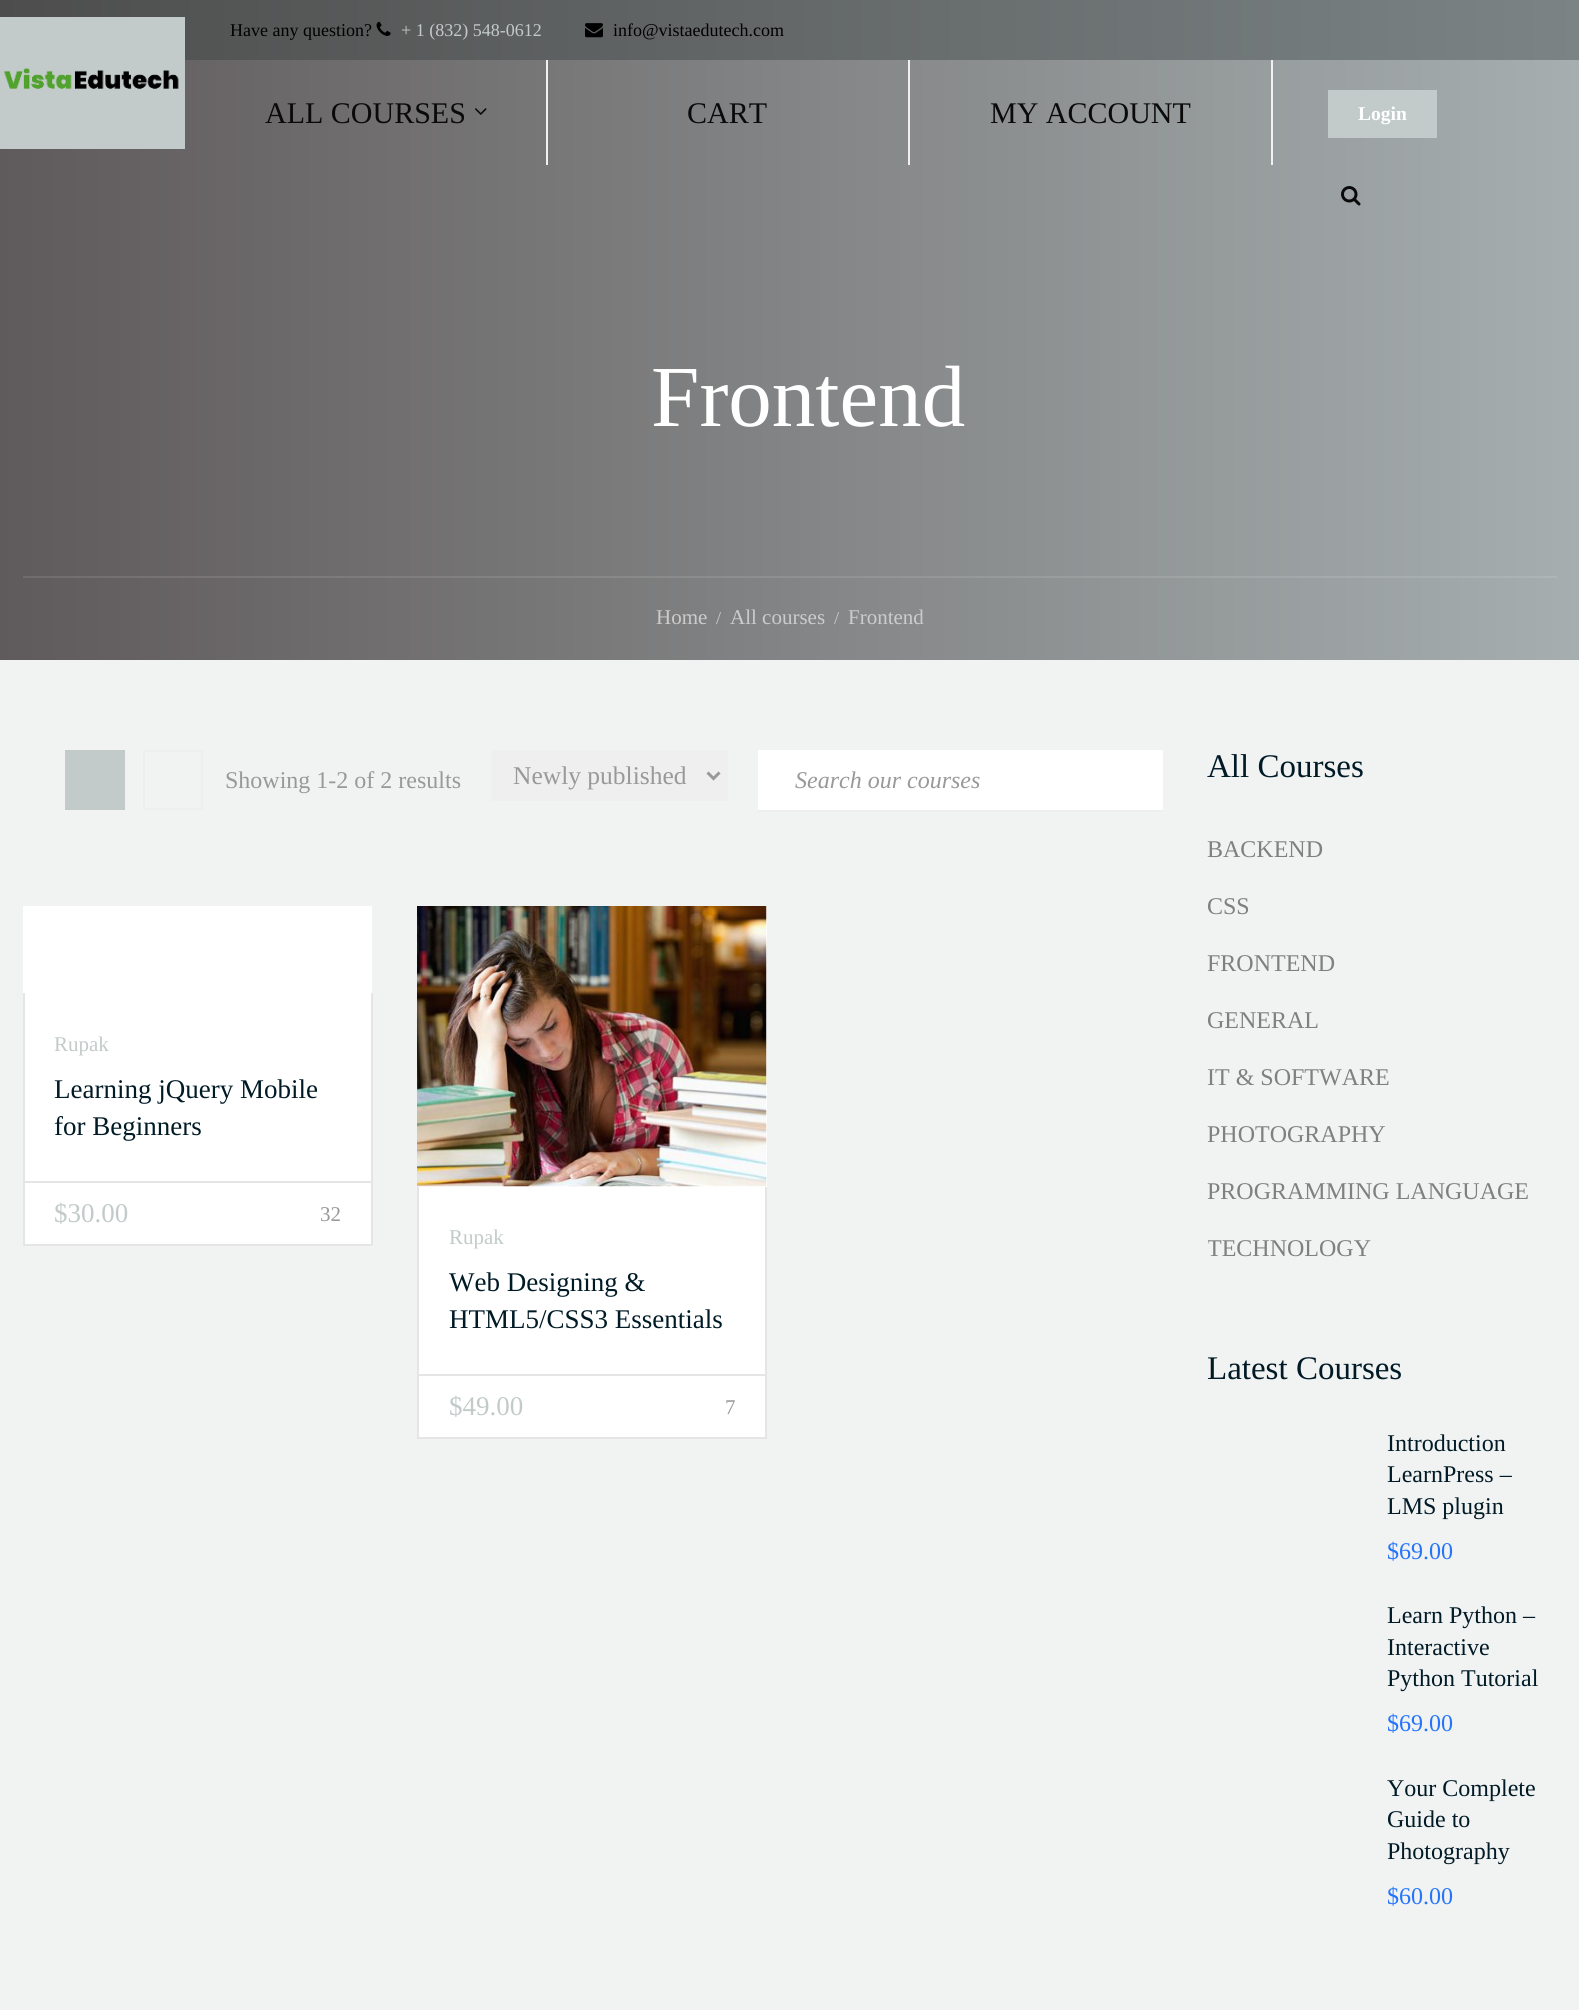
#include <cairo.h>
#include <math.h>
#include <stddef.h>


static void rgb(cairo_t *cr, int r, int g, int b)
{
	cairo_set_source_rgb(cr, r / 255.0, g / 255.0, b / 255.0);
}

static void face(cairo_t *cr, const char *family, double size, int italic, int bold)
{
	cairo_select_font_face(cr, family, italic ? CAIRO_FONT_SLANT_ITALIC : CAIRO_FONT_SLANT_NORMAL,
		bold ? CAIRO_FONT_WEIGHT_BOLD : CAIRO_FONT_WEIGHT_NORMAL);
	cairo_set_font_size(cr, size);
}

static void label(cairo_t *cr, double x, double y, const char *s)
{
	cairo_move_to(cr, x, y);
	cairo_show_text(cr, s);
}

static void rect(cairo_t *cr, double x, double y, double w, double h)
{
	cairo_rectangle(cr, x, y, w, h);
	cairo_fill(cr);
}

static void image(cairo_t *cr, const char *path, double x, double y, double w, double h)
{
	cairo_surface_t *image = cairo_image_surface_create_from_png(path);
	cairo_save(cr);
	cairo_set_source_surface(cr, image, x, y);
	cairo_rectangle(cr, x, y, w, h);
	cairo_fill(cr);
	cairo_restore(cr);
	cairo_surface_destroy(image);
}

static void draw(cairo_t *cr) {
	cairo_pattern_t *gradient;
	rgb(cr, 241, 242, 242);
	cairo_paint(cr);
	gradient = cairo_pattern_create_linear(0, 330, 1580, 330);
	cairo_pattern_add_color_stop_rgba(gradient, 0, 0.302, 0.302, 0.302, 1);
	cairo_pattern_add_color_stop_rgba(gradient, 1, 0.482, 0.514, 0.518, 1);
	cairo_set_source(cr, gradient);
	cairo_pattern_destroy(gradient);
	rect(cr, 0, 0, 1579, 60);
	face(cr, "Liberation Serif", 18, 0, 0);
	rgb(cr, 0, 0, 0);
	label(cr, 230, 36, "Have any question?");
	image(cr, "image0.png", 376, 21, 15, 15);
	rgb(cr, 194, 202, 202);
	label(cr, 401, 36, "+ 1 (832) 548-0612");
	image(cr, "image1.png", 585, 23, 18, 15);
	rgb(cr, 0, 0, 0);
	label(cr, 613, 36, "info@vistaedutech.com");
	gradient = cairo_pattern_create_linear(0, 330, 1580, 330);
	cairo_pattern_add_color_stop_rgba(gradient, 0, 0.373, 0.353, 0.357, 1);
	cairo_pattern_add_color_stop_rgba(gradient, 1, 0.651, 0.682, 0.686, 1);
	cairo_set_source(cr, gradient);
	cairo_pattern_destroy(gradient);
	rect(cr, 0, 60, 1579, 600);
	rgb(cr, 194, 202, 202);
	rect(cr, 0, 17, 185, 132);
	image(cr, "image2.png", 3, 67, 176, 22);
	rgb(cr, 240, 240, 240);
	rect(cr, 546, 60, 2, 105);
	face(cr, "Liberation Serif", 30, 0, 0);
	rgb(cr, 10, 10, 10);
	label(cr, 265, 123, "ALL COURSES");
	image(cr, "image3.png", 475, 108, 12, 7);
	rgb(cr, 240, 240, 240);
	rect(cr, 908, 60, 2, 105);
	rgb(cr, 10, 10, 10);
	label(cr, 687, 123, "CART");
	rgb(cr, 240, 240, 240);
	rect(cr, 1271, 60, 2, 105);
	rgb(cr, 10, 10, 10);
	label(cr, 990, 123, "MY ACCOUNT");
	rgb(cr, 194, 202, 202);
	rect(cr, 1328, 90, 109, 48);
	face(cr, "Liberation Serif", 19.5, 0, 1);
	rgb(cr, 255, 255, 255);
	label(cr, 1358, 120, "Login");
	image(cr, "image4.png", 1341, 186, 20, 20);
	gradient = cairo_pattern_create_linear(0, 330, 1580, 330);
	cairo_pattern_add_color_stop_rgba(gradient, 0, 0.435, 0.42, 0.42, 1);
	cairo_pattern_add_color_stop_rgba(gradient, 1, 0.686, 0.714, 0.718, 1);
	cairo_set_source(cr, gradient);
	cairo_pattern_destroy(gradient);
	rect(cr, 23, 576, 1534, 2);
	face(cr, "Liberation Serif", 87, 0, 0);
	rgb(cr, 255, 255, 255);
	label(cr, 651, 426, "Frontend");
	face(cr, "Liberation Serif", 21, 0, 0);
	rgb(cr, 204, 204, 204);
	label(cr, 656, 624, "Home");
	face(cr, "Liberation Serif", 18, 0, 0);
	label(cr, 716, 624, "/");
	face(cr, "Liberation Serif", 21, 0, 0);
	label(cr, 730, 624, "All courses");
	face(cr, "Liberation Serif", 18, 0, 0);
	label(cr, 834, 624, "/");
	face(cr, "Liberation Serif", 21, 0, 0);
	label(cr, 848, 624, "Frontend");
	rgb(cr, 194, 202, 202);
	rect(cr, 65, 750, 60, 60);
	cairo_rectangle(cr, 144, 751, 58, 58);
	rgb(cr, 238, 238, 238);
	cairo_stroke(cr);
	face(cr, "Liberation Serif", 24, 0, 0);
	rgb(cr, 153, 153, 153);
	label(cr, 225, 788, "Showing 1-2 of 2 results");
	rgb(cr, 239, 239, 239);
	rect(cr, 491, 750, 237, 51);
	cairo_new_path(cr);
	cairo_move_to(cr, 707.5, 772.5);
	cairo_line_to(cr, 713.5, 778.5);
	cairo_line_to(cr, 719.5, 772.5);
	rgb(cr, 153, 153, 153);
	cairo_set_line_width(cr, 3);
	cairo_stroke(cr);
	face(cr, "Liberation Serif", 25.5, 0, 0);
	label(cr, 513, 784, "Newly published");
	rgb(cr, 255, 255, 255);
	rect(cr, 758, 750, 405, 60);
	rgb(cr, 238, 238, 238);
	rect(cr, 758, 810, 405, 2);
	face(cr, "Liberation Serif", 24, 1, 0);
	rgb(cr, 153, 153, 153);
	label(cr, 795, 788, "Search our courses");
	rgb(cr, 255, 255, 255);
	rect(cr, 23, 906, 349, 338);
	rgb(cr, 229, 229, 229);
	rect(cr, 371, 993, 2, 252);
	rect(cr, 23, 1244, 349, 2);
	rect(cr, 23, 993, 2, 252);
	face(cr, "Liberation Serif", 21, 0, 0);
	rgb(cr, 194, 202, 202);
	label(cr, 54, 1051, "Rupak");
	face(cr, "Liberation Serif", 27, 0, 0);
	rgb(cr, 0, 26, 38);
	label(cr, 54, 1098, "Learning jQuery Mobile");
	label(cr, 54, 1135, "for Beginners");
	rgb(cr, 229, 229, 229);
	rect(cr, 24, 1181, 347, 2);
	rgb(cr, 194, 202, 202);
	label(cr, 54, 1222, "$30.00");
	face(cr, "Liberation Serif", 21, 0, 0);
	rgb(cr, 153, 153, 153);
	label(cr, 320, 1221, "32");
	rgb(cr, 255, 255, 255);
	rect(cr, 417, 906, 350, 531);
	image(cr, "image5.png", 417, 906, 350, 281);
	rgb(cr, 229, 229, 229);
	rect(cr, 765, 1187, 2, 252);
	rect(cr, 417, 1437, 350, 2);
	rect(cr, 417, 1187, 2, 252);
	rgb(cr, 194, 202, 202);
	label(cr, 449, 1244, "Rupak");
	face(cr, "Liberation Serif", 27, 0, 0);
	rgb(cr, 0, 26, 38);
	label(cr, 449, 1291, "Web Designing &");
	label(cr, 449, 1328, "HTML5/CSS3 Essentials");
	rgb(cr, 229, 229, 229);
	rect(cr, 419, 1374, 346, 2);
	rgb(cr, 194, 202, 202);
	label(cr, 449, 1415, "$49.00");
	face(cr, "Liberation Serif", 21, 0, 0);
	rgb(cr, 153, 153, 153);
	label(cr, 725, 1414, "7");
	face(cr, "Liberation Serif", 33, 0, 0);
	rgb(cr, 0, 26, 38);
	label(cr, 1207, 777, "All Courses");
	face(cr, "Liberation Serif", 24, 0, 0);
	rgb(cr, 128, 128, 128);
	label(cr, 1207, 857, "BACKEND");
	label(cr, 1207, 914, "CSS");
	label(cr, 1207, 971, "FRONTEND");
	label(cr, 1207, 1028, "GENERAL");
	label(cr, 1207, 1085, "IT & SOFTWARE");
	label(cr, 1207, 1142, "PHOTOGRAPHY");
	label(cr, 1207, 1199, "PROGRAMMING LANGUAGE");
	cairo_save(cr);
	cairo_rectangle(cr, 1208, 750, 349, 527);
	cairo_clip(cr);
	label(cr, 1207, 1256, "TECHNOLOGY");
	cairo_restore(cr);
	face(cr, "Liberation Serif", 33, 0, 0);
	rgb(cr, 0, 26, 38);
	label(cr, 1207, 1379, "Latest Courses");
	face(cr, "Liberation Serif", 24, 0, 0);
	label(cr, 1387, 1451, "Introduction");
	label(cr, 1387, 1482, "LearnPress –");
	label(cr, 1387, 1514, "LMS plugin");
	rgb(cr, 37, 117, 252);
	label(cr, 1387, 1559, "$69.00");
	rgb(cr, 0, 26, 38);
	label(cr, 1387, 1623, "Learn Python –");
	label(cr, 1387, 1655, "Interactive");
	label(cr, 1387, 1686, "Python Tutorial");
	rgb(cr, 37, 117, 252);
	label(cr, 1387, 1731, "$69.00");
	rgb(cr, 0, 26, 38);
	label(cr, 1387, 1796, "Your Complete");
	label(cr, 1387, 1827, "Guide to");
	label(cr, 1387, 1859, "Photography");
	rgb(cr, 37, 117, 252);
	label(cr, 1387, 1904, "$60.00");
}

int main(void) {
	cairo_surface_t *surface = cairo_image_surface_create(CAIRO_FORMAT_RGB24, 1579, 2010);
	cairo_t *cr = cairo_create(surface);
	cairo_font_options_t *options = cairo_font_options_create();
	cairo_font_options_set_hint_metrics(options, CAIRO_HINT_METRICS_OFF);
	cairo_font_options_set_hint_style(options, CAIRO_HINT_STYLE_NONE);
	cairo_set_font_options(cr, options);
	cairo_set_miter_limit(cr, 4);
	draw(cr);
	cairo_surface_write_to_png(surface, "render.png");
	cairo_font_options_destroy(options);
	cairo_destroy(cr);
	cairo_surface_destroy(surface);
	return 0;
}
